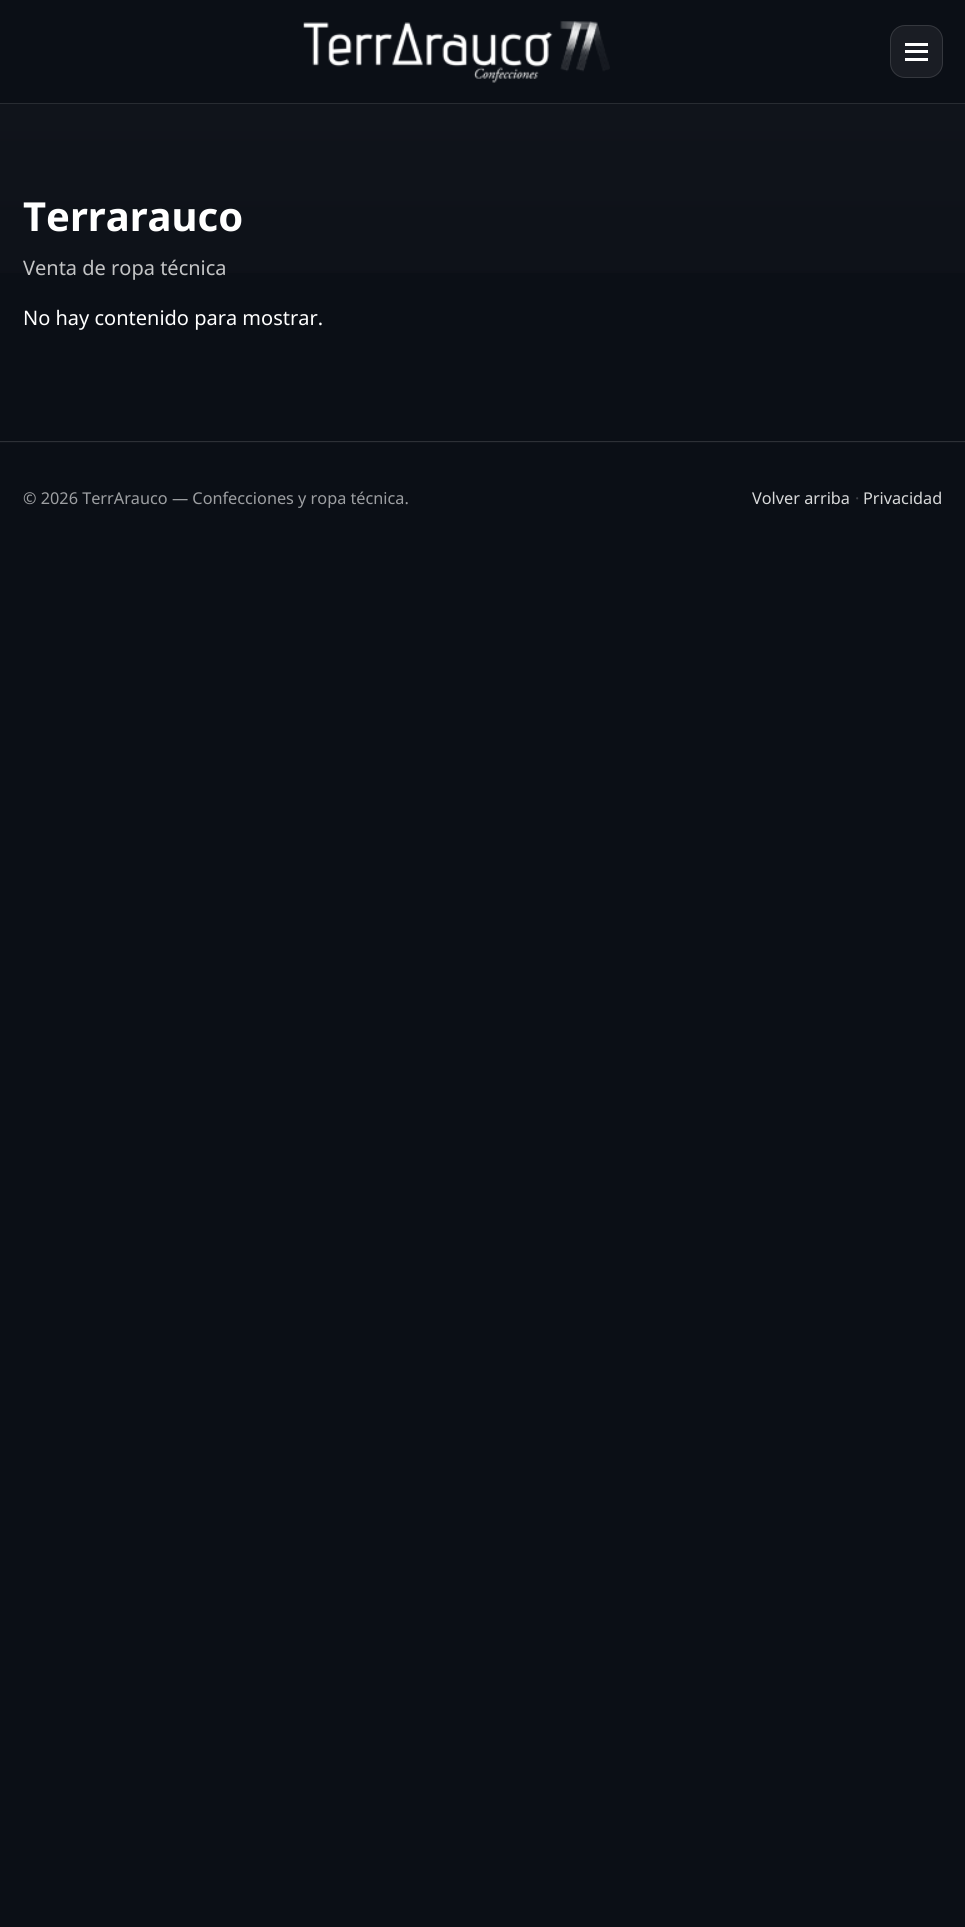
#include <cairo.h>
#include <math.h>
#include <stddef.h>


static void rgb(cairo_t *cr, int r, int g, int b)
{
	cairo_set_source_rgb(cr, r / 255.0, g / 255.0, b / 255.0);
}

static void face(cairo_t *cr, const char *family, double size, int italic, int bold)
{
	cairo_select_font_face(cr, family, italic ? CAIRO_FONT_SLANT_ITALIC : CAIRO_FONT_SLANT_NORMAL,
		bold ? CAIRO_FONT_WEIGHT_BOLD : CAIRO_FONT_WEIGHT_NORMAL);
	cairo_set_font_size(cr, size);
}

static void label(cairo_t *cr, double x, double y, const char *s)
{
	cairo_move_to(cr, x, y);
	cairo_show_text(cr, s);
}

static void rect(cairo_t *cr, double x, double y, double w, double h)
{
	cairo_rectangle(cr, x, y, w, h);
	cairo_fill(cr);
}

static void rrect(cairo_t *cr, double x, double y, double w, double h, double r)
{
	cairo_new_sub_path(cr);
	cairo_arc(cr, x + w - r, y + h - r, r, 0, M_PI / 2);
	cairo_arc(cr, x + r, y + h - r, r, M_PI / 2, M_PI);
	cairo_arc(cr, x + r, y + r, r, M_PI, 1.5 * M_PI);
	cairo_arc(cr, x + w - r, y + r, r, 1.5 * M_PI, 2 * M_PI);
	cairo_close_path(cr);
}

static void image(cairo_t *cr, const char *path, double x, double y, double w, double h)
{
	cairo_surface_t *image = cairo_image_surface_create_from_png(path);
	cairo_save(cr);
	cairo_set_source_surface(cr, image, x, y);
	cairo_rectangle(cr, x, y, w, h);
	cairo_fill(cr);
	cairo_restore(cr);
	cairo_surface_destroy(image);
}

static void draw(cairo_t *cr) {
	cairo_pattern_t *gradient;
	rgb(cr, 11, 15, 22);
	cairo_paint(cr);
	rgb(cr, 40, 44, 50);
	rect(cr, 0, 103, 965, 1);
	image(cr, "image0.png", 303, 21, 307, 62);
	rgb(cr, 26, 29, 36);
	rrect(cr, 890, 25, 53, 53, 15);
	cairo_fill(cr);
	rrect(cr, 890.5, 25.5, 52, 52, 14.5);
	cairo_set_source_rgba(cr, 1, 1, 1, 0.12);
	cairo_set_line_width(cr, 1);
	cairo_stroke(cr);
	rgb(cr, 255, 255, 255);
	rect(cr, 905, 50, 23, 3);
	rect(cr, 905, 43, 23, 3);
	rect(cr, 905, 58, 23, 3);
	gradient = cairo_pattern_create_linear(483, 104, 483, 441);
	cairo_pattern_add_color_stop_rgba(gradient, 0, 0.063, 0.078, 0.106, 1);
	cairo_pattern_add_color_stop_rgba(gradient, 1, 0.043, 0.059, 0.086, 1);
	cairo_set_source(cr, gradient);
	cairo_pattern_destroy(gradient);
	rect(cr, 0, 104, 965, 169);
	gradient = cairo_pattern_create_linear(483, 441, 483, 779);
	cairo_pattern_add_color_stop_rgba(gradient, 0, 0.063, 0.078, 0.106, 1);
	cairo_pattern_add_color_stop_rgba(gradient, 1, 0.043, 0.059, 0.086, 1);
	cairo_set_source(cr, gradient);
	cairo_pattern_destroy(gradient);
	rect(cr, 0, 442, 965, 1);
	rgb(cr, 45, 48, 54);
	rect(cr, 0, 441, 965, 1);
	face(cr, "Noto Sans", 40, 0, 1);
	rgb(cr, 255, 255, 255);
	label(cr, 23, 231, "Terrarauco");
	face(cr, "Noto Sans", 20, 0, 0);
	rgb(cr, 195, 196, 197);
	label(cr, 23, 275, "Venta de ropa técnica");
	rgb(cr, 255, 255, 255);
	label(cr, 23, 325, "No hay contenido para mostrar.");
	face(cr, "Noto Sans", 16.25, 0, 0);
	rgb(cr, 157, 159, 162);
	label(cr, 23, 504, "© 2026 TerrArauco — Confecciones y ropa técnica.");
	rgb(cr, 216, 217, 218);
	label(cr, 752, 504, "Volver arriba");
	rgb(cr, 62, 65, 71);
	label(cr, 855, 504, "·");
	rgb(cr, 216, 217, 218);
	label(cr, 863, 504, "Privacidad");
}

int main(void) {
	cairo_surface_t *surface = cairo_image_surface_create(CAIRO_FORMAT_RGB24, 965, 1927);
	cairo_t *cr = cairo_create(surface);
	cairo_font_options_t *options = cairo_font_options_create();
	cairo_font_options_set_hint_metrics(options, CAIRO_HINT_METRICS_OFF);
	cairo_font_options_set_hint_style(options, CAIRO_HINT_STYLE_NONE);
	cairo_set_font_options(cr, options);
	cairo_set_miter_limit(cr, 4);
	draw(cr);
	cairo_surface_write_to_png(surface, "render.png");
	cairo_font_options_destroy(options);
	cairo_destroy(cr);
	cairo_surface_destroy(surface);
	return 0;
}
